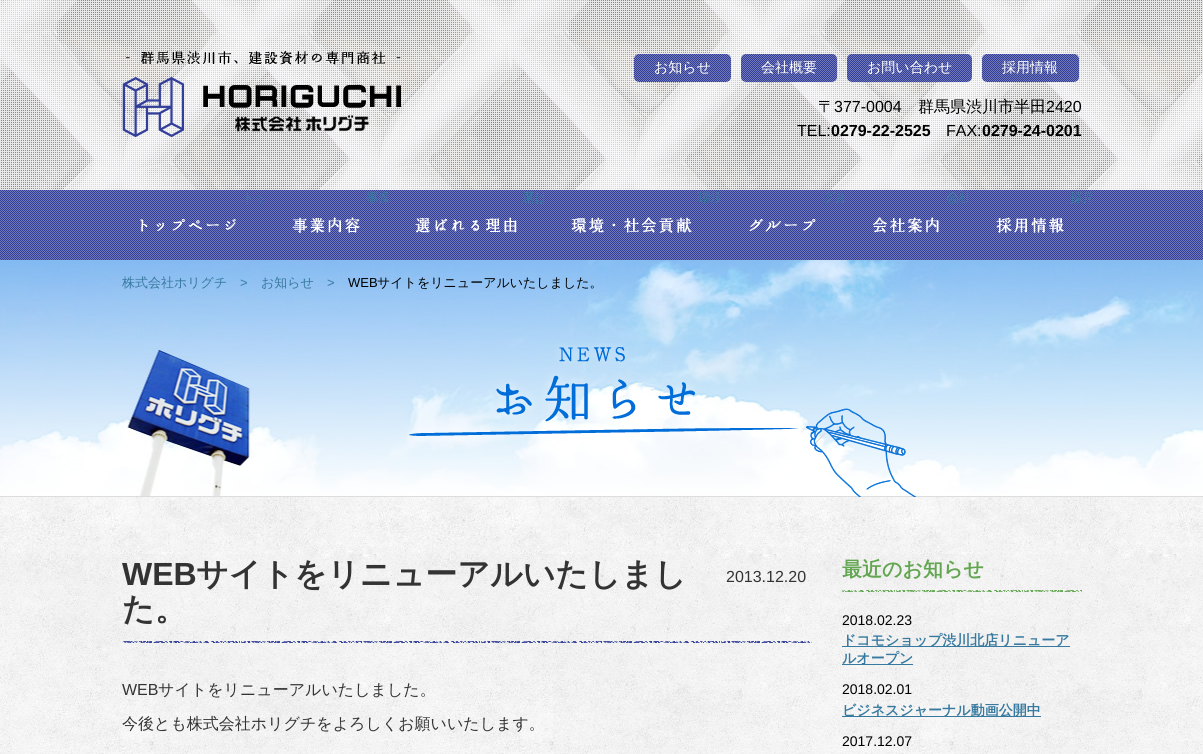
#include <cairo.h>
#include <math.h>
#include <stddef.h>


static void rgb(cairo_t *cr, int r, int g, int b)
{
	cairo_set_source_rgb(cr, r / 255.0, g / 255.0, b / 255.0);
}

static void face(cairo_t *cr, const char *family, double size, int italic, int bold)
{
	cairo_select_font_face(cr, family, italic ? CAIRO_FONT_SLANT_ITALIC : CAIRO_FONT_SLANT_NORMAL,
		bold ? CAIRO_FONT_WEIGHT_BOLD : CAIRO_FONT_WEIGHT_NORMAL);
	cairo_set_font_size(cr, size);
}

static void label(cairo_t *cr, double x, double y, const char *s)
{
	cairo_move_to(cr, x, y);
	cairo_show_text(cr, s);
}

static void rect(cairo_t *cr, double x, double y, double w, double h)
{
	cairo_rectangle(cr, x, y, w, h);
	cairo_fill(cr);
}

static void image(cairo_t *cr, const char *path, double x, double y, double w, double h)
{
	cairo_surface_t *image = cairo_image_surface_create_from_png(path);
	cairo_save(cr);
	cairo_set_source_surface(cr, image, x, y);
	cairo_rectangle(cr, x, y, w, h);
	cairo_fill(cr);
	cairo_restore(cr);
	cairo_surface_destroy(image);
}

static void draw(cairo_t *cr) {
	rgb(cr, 255, 255, 255);
	cairo_paint(cr);
	image(cr, "image0.png", 0, 497, 1203, 257);
	image(cr, "image1.png", 0, 0, 1203, 190);
	image(cr, "image2.png", 122, 51, 279, 87);
	image(cr, "image3.png", 634, 54, 97, 28);
	image(cr, "image4.png", 741, 54, 96, 28);
	image(cr, "image5.png", 847, 54, 125, 28);
	image(cr, "image6.png", 982, 54, 97, 28);
	face(cr, "WenQuanYi Zen Hei Medium", 14, 0, 0);
	rgb(cr, 255, 255, 255);
	label(cr, 654, 72, "お知らせ");
	label(cr, 761, 72, "会社概要");
	label(cr, 867, 72, "お問い合わせ");
	label(cr, 1002, 72, "採用情報");
	face(cr, "WenQuanYi Zen Hei Medium", 16, 0, 0);
	rgb(cr, 0, 0, 0);
	label(cr, 818, 112, "〒");
	face(cr, "Liberation Sans", 16, 0, 0);
	label(cr, 834, 112, "377-0004");
	face(cr, "WenQuanYi Zen Hei Medium", 16, 0, 0);
	label(cr, 918, 112, "群馬県渋川市半田");
	face(cr, "Liberation Sans", 16, 0, 0);
	label(cr, 1046, 112, "2420");
	label(cr, 797, 136, "TEL:");
	face(cr, "Liberation Sans", 16, 0, 1);
	label(cr, 831, 136, "0279-22-2525");
	face(cr, "Liberation Sans", 16, 0, 0);
	label(cr, 946, 136, "FAX:");
	face(cr, "Liberation Sans", 16, 0, 1);
	label(cr, 982, 136, "0279-24-0201");
	image(cr, "image7.png", 0, 190, 1203, 70);
	image(cr, "image8.png", 140, 219, 96, 13);
	cairo_save(cr);
	cairo_rectangle(cr, 112, 190, 152, 70);
	cairo_clip(cr);
	face(cr, "WenQuanYi Zen Hei Medium", 13, 0, 0);
	rgb(cr, 55, 121, 159);
	label(cr, 242, 202, "トッ");
	cairo_restore(cr);
	image(cr, "image9.png", 292, 217, 68, 16);
	cairo_save(cr);
	cairo_rectangle(cr, 264, 190, 124, 70);
	cairo_clip(cr);
	face(cr, "WenQuanYi Zen Hei Medium", 13, 0, 0);
	rgb(cr, 55, 121, 159);
	label(cr, 366, 202, "事業");
	cairo_restore(cr);
	image(cr, "image10.png", 415, 217, 102, 16);
	cairo_save(cr);
	cairo_rectangle(cr, 388, 190, 156, 70);
	cairo_clip(cr);
	face(cr, "WenQuanYi Zen Hei Medium", 13, 0, 0);
	rgb(cr, 55, 121, 159);
	label(cr, 522, 202, "選ば");
	cairo_restore(cr);
	image(cr, "image11.png", 571, 217, 121, 16);
	cairo_save(cr);
	cairo_rectangle(cr, 544, 190, 176, 70);
	cairo_clip(cr);
	face(cr, "WenQuanYi Zen Hei Medium", 13, 0, 0);
	rgb(cr, 55, 121, 159);
	label(cr, 698, 202, "環境");
	cairo_restore(cr);
	image(cr, "image12.png", 749, 219, 67, 13);
	cairo_save(cr);
	cairo_rectangle(cr, 720, 190, 124, 70);
	cairo_clip(cr);
	face(cr, "WenQuanYi Zen Hei Medium", 13, 0, 0);
	rgb(cr, 55, 121, 159);
	label(cr, 822, 202, "グル");
	cairo_restore(cr);
	image(cr, "image13.png", 873, 217, 66, 16);
	cairo_save(cr);
	cairo_rectangle(cr, 844, 190, 124, 70);
	cairo_clip(cr);
	face(cr, "WenQuanYi Zen Hei Medium", 13, 0, 0);
	rgb(cr, 55, 121, 159);
	label(cr, 946, 202, "会社");
	cairo_restore(cr);
	image(cr, "image14.png", 996, 217, 68, 16);
	cairo_save(cr);
	cairo_rectangle(cr, 968, 190, 124, 70);
	cairo_clip(cr);
	face(cr, "WenQuanYi Zen Hei Medium", 13, 0, 0);
	rgb(cr, 55, 121, 159);
	label(cr, 1070, 202, "採用");
	cairo_restore(cr);
	image(cr, "image15.png", 0, 260, 1203, 237);
	image(cr, "image16.png", 409, 343, 508, 154);
	face(cr, "WenQuanYi Zen Hei Medium", 13, 0, 0);
	rgb(cr, 55, 121, 159);
	label(cr, 122, 287, "株式会社ホリグチ");
	face(cr, "Liberation Sans", 13, 0, 0);
	label(cr, 240, 287, ">");
	face(cr, "WenQuanYi Zen Hei Medium", 13, 0, 0);
	label(cr, 261, 287, "お知らせ");
	face(cr, "Liberation Sans", 13, 0, 0);
	label(cr, 327, 287, ">");
	rgb(cr, 0, 0, 0);
	label(cr, 348, 287, "WEB");
	face(cr, "WenQuanYi Zen Hei Medium", 13, 0, 0);
	label(cr, 377, 287, "サイトをリニューアルいたしました。");
	image(cr, "image17.png", 122, 641, 690, 2);
	face(cr, "Liberation Sans", 32, 0, 1);
	rgb(cr, 51, 51, 51);
	label(cr, 122, 585, "WEB");
	face(cr, "WenQuanYi Zen Hei", 32, 0, 1);
	label(cr, 196, 585, "サイトをリニューアルいたしまし");
	label(cr, 122, 620, "た。");
	face(cr, "Liberation Sans", 16, 0, 0);
	label(cr, 726, 582, "2013.12.20");
	label(cr, 122, 695, "WEB");
	face(cr, "WenQuanYi Zen Hei Medium", 16, 0, 0);
	label(cr, 158, 695, "サイトをリニューアルいたしました。");
	label(cr, 122, 729, "今後とも株式会社ホリグチをよろしくお願いいたします。");
	image(cr, "image18.png", 842, 590, 240, 2);
	face(cr, "WenQuanYi Zen Hei", 20, 0, 1);
	rgb(cr, 99, 166, 81);
	label(cr, 842, 576, "最近のお知らせ");
	face(cr, "Liberation Sans", 14, 0, 0);
	rgb(cr, 0, 0, 0);
	label(cr, 842, 625, "2018.02.23");
	rgb(cr, 55, 121, 159);
	rect(cr, 842, 646, 228, 1);
	face(cr, "WenQuanYi Zen Hei", 14, 0, 1);
	label(cr, 842, 645, "ドコモショップ渋川北店リニューア");
	rect(cr, 842, 664, 71, 1);
	label(cr, 842, 663, "ルオープン");
	face(cr, "Liberation Sans", 14, 0, 0);
	rgb(cr, 0, 0, 0);
	label(cr, 842, 694, "2018.02.01");
	rgb(cr, 55, 121, 159);
	rect(cr, 842, 716, 199, 1);
	face(cr, "WenQuanYi Zen Hei", 14, 0, 1);
	label(cr, 842, 715, "ビジネスジャーナル動画公開中");
	face(cr, "Liberation Sans", 14, 0, 0);
	rgb(cr, 0, 0, 0);
	label(cr, 842, 746, "2017.12.07");
}

int main(void) {
	cairo_surface_t *surface = cairo_image_surface_create(CAIRO_FORMAT_RGB24, 1203, 754);
	cairo_t *cr = cairo_create(surface);
	cairo_font_options_t *options = cairo_font_options_create();
	cairo_font_options_set_hint_metrics(options, CAIRO_HINT_METRICS_OFF);
	cairo_font_options_set_hint_style(options, CAIRO_HINT_STYLE_NONE);
	cairo_set_font_options(cr, options);
	cairo_set_miter_limit(cr, 4);
	draw(cr);
	cairo_surface_write_to_png(surface, "render.png");
	cairo_font_options_destroy(options);
	cairo_destroy(cr);
	cairo_surface_destroy(surface);
	return 0;
}
